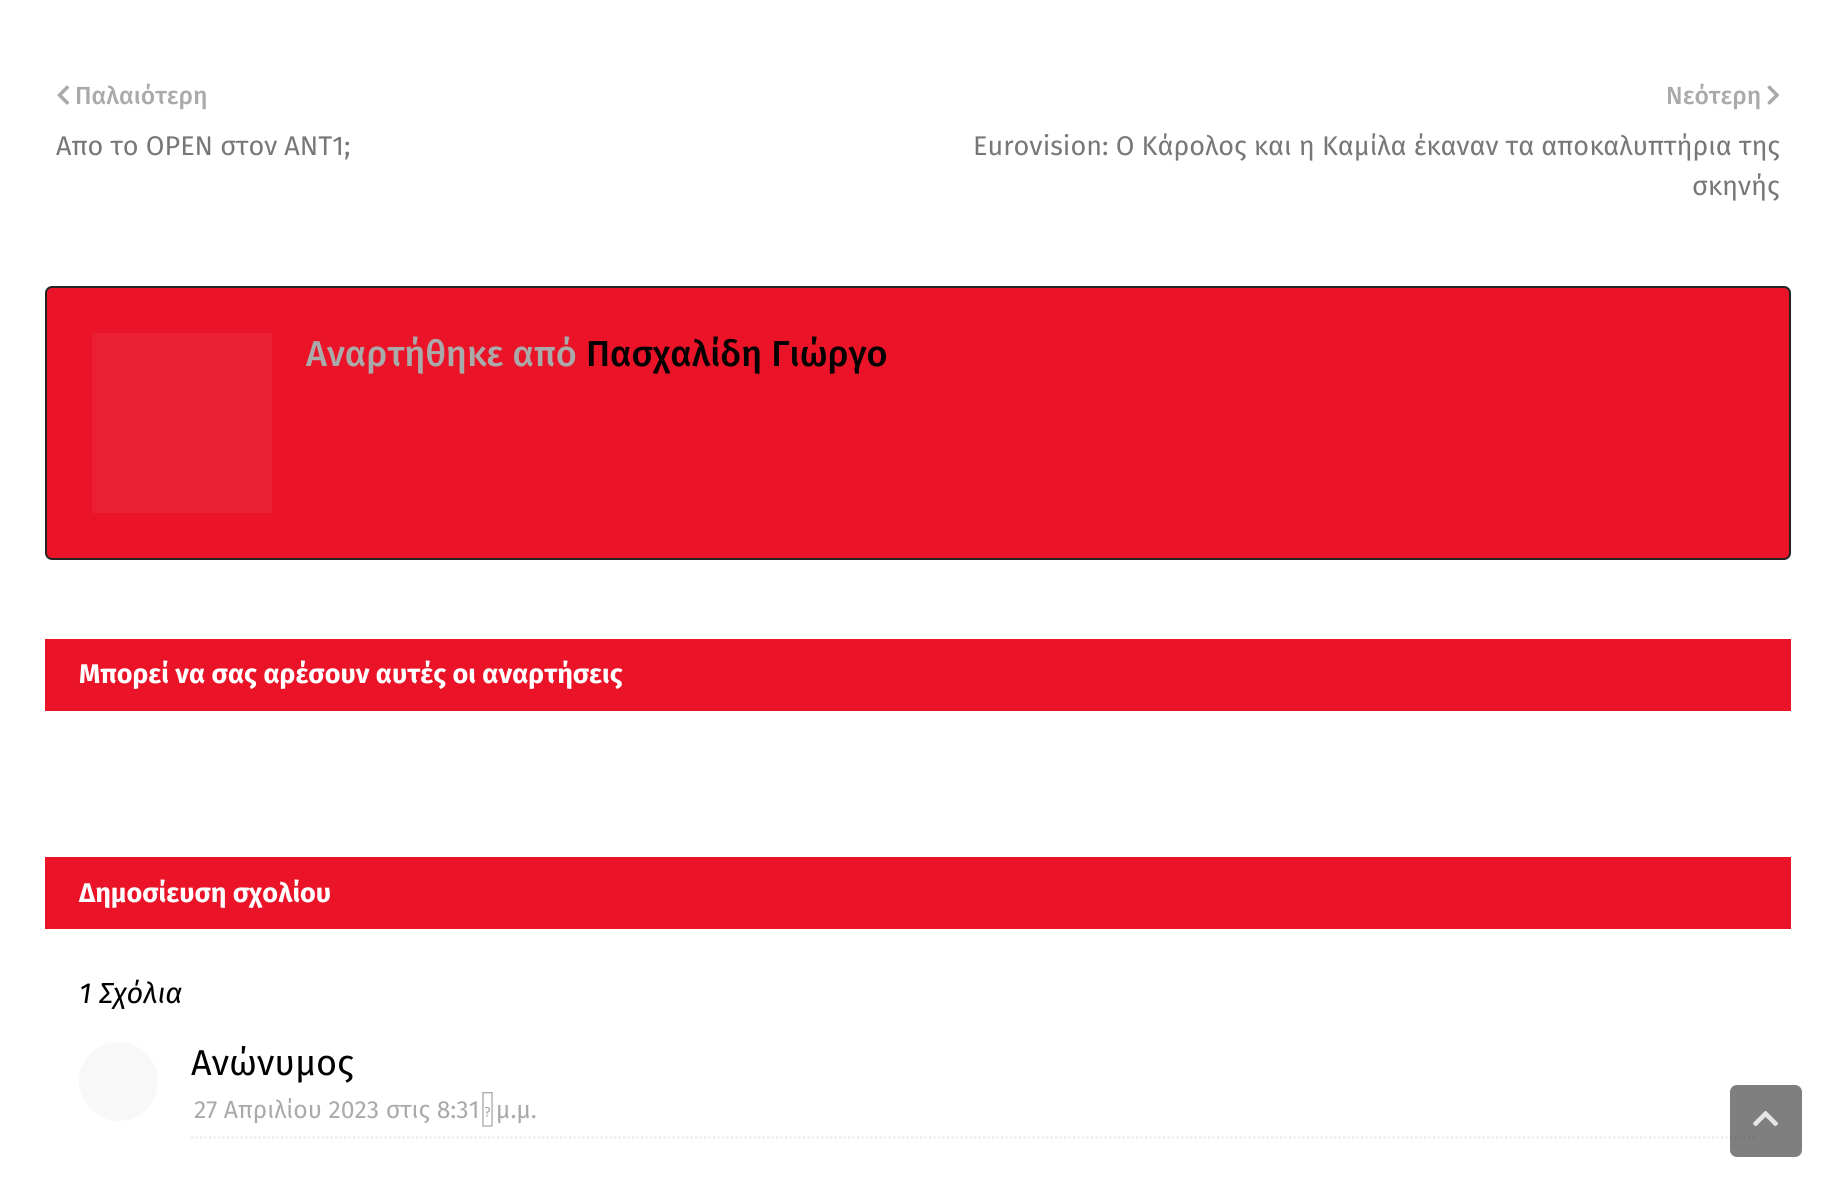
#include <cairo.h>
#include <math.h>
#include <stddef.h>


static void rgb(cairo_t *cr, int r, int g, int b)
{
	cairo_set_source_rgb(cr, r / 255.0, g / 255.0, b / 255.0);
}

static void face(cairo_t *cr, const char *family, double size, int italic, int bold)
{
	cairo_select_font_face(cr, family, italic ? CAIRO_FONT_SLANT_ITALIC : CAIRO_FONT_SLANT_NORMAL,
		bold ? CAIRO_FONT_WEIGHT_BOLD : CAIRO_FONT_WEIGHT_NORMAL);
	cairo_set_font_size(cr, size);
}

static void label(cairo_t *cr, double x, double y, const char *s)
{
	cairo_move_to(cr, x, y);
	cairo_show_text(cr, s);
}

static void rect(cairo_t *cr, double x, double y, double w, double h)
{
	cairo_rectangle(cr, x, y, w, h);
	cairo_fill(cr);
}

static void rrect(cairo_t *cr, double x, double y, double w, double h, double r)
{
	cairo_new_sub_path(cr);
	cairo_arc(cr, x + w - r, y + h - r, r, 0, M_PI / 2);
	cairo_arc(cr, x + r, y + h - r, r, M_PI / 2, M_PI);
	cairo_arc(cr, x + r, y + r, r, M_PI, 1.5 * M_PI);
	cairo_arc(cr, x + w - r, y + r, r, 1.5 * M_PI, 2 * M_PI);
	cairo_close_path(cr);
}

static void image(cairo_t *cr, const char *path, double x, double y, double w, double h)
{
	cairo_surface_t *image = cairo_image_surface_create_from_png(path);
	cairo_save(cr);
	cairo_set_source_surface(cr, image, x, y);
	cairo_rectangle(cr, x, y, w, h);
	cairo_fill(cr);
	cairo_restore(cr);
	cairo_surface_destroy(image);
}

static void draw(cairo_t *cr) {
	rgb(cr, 255, 255, 255);
	cairo_paint(cr);
	image(cr, "image0.png", 57, 85, 13, 20);
	face(cr, "Fira Sans Medium", 24.75, 0, 0);
	rgb(cr, 170, 170, 170);
	label(cr, 75, 104, "Παλαιότερη");
	face(cr, "Fira Sans", 27, 0, 0);
	rgb(cr, 119, 119, 119);
	label(cr, 56, 155, "Απο το OPEN στον ΑΝΤ1;");
	face(cr, "Fira Sans Medium", 24.75, 0, 0);
	rgb(cr, 170, 170, 170);
	label(cr, 1666, 104, "Νεότερη");
	image(cr, "image1.png", 1767, 85, 12, 20);
	face(cr, "Fira Sans", 27, 0, 0);
	rgb(cr, 119, 119, 119);
	label(cr, 973, 155, "Eurovision: Ο Κάρολος και η Καμίλα έκαναν τα αποκαλυπτήρια της");
	label(cr, 1692, 195, "σκηνής");
	rgb(cr, 234, 19, 40);
	rrect(cr, 46, 287, 1744, 272, 6);
	cairo_fill_preserve(cr);
	rgb(cr, 37, 37, 37);
	cairo_stroke(cr);
	rgb(cr, 235, 31, 51);
	rect(cr, 92, 333, 180, 180);
	face(cr, "Fira Sans Medium", 36, 0, 0);
	rgb(cr, 170, 170, 170);
	label(cr, 306, 366, "Αναρτήθηκε από");
	rgb(cr, 0, 0, 0);
	label(cr, 586, 366, "Πασχαλίδη Γιώργο");
	rgb(cr, 234, 19, 40);
	rect(cr, 45, 639, 1746, 72);
	face(cr, "Fira Sans", 27, 0, 1);
	rgb(cr, 255, 255, 255);
	label(cr, 79, 683, "Μπορεί να σας αρέσουν αυτές οι αναρτήσεις");
	rgb(cr, 234, 19, 40);
	rect(cr, 45, 857, 1746, 72);
	rgb(cr, 255, 255, 255);
	label(cr, 79, 902, "Δημοσίευση σχολίου");
	face(cr, "Fira Sans", 29, 1, 0);
	rgb(cr, 0, 0, 0);
	label(cr, 79, 1003, "1 Σχόλια");
	rgb(cr, 248, 248, 248);
	cairo_new_path(cr);
	cairo_arc(cr, 118.5, 1081.5, 39.5, 0, 2 * M_PI);
	cairo_fill(cr);
	cairo_new_path(cr);
	cairo_move_to(cr, 191, 1137.5);
	cairo_line_to(cr, 1757, 1137.5);
	rgb(cr, 235, 235, 243);
	cairo_set_line_width(cr, 2.2);
	cairo_set_dash(cr, (double[]){2.25, 2.25}, 2, 0);
	cairo_stroke(cr);
	face(cr, "Fira Sans", 36, 0, 0);
	rgb(cr, 0, 0, 0);
	label(cr, 191, 1075, "Ανώνυμος");
	face(cr, "Fira Sans", 24.75, 0, 0);
	rgb(cr, 170, 170, 170);
	label(cr, 194, 1118, "27 Απριλίου 2023 στις 8:31 μ.μ.");
	cairo_set_source_rgba(cr, 0, 0, 0, 0.5);
	rrect(cr, 1730, 1085, 72, 72, 7);
	cairo_fill(cr);
	image(cr, "image2.png", 1753, 1111, 25, 16);
}

int main(void) {
	cairo_surface_t *surface = cairo_image_surface_create(CAIRO_FORMAT_RGB24, 1834, 1190);
	cairo_t *cr = cairo_create(surface);
	cairo_font_options_t *options = cairo_font_options_create();
	cairo_font_options_set_hint_metrics(options, CAIRO_HINT_METRICS_OFF);
	cairo_font_options_set_hint_style(options, CAIRO_HINT_STYLE_NONE);
	cairo_set_font_options(cr, options);
	cairo_set_miter_limit(cr, 4);
	draw(cr);
	cairo_surface_write_to_png(surface, "render.png");
	cairo_font_options_destroy(options);
	cairo_destroy(cr);
	cairo_surface_destroy(surface);
	return 0;
}
